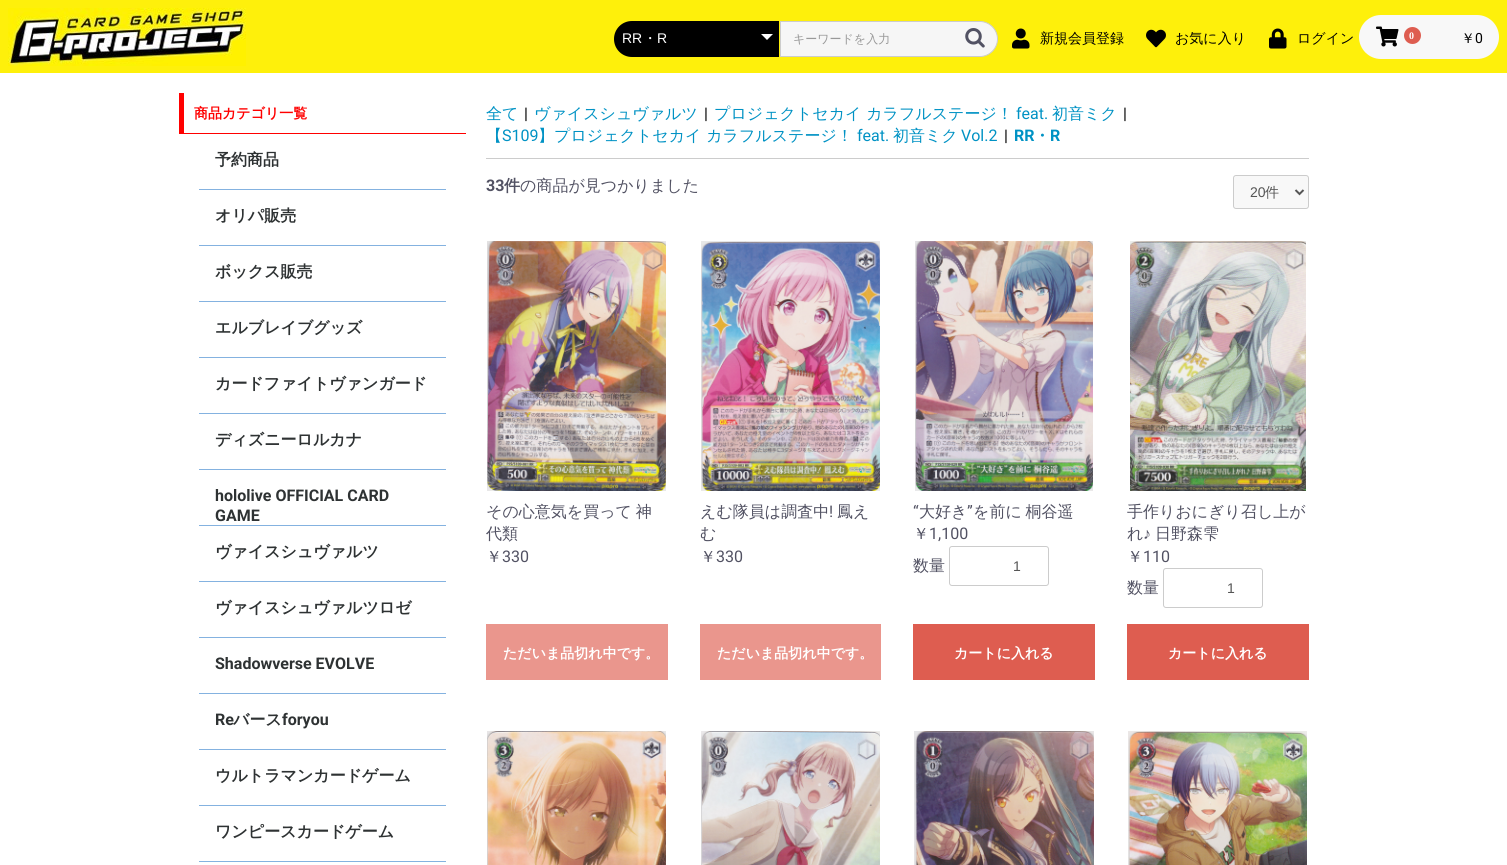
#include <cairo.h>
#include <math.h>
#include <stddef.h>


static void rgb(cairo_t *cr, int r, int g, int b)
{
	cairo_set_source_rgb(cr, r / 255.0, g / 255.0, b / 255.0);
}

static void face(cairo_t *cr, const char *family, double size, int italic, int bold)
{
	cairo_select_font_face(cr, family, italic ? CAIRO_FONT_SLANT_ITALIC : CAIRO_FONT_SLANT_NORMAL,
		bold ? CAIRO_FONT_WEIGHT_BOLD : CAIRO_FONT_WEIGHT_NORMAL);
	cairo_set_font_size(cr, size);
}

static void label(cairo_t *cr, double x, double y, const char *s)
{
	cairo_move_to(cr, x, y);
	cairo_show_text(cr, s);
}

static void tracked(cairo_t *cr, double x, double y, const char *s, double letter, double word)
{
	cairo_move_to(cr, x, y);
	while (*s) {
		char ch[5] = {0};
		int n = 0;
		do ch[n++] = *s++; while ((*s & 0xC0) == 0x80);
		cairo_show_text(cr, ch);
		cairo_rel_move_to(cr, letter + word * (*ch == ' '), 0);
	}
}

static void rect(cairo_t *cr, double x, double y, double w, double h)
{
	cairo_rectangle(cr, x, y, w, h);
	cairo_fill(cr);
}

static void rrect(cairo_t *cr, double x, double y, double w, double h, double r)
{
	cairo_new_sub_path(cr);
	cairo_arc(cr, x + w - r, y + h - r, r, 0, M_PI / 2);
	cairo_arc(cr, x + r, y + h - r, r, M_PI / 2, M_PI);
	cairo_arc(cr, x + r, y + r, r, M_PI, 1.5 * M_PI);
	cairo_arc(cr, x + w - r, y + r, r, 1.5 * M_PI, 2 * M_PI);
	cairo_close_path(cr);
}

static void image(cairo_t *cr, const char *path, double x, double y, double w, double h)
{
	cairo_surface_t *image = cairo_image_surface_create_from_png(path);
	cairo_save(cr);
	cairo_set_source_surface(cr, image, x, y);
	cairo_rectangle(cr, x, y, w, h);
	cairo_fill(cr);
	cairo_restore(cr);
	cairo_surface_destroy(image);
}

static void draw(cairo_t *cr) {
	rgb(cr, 255, 255, 255);
	cairo_paint(cr);
	rgb(cr, 254, 240, 11);
	rect(cr, 0, 0, 1507, 73);
	image(cr, "image0.png", 8, 8, 238, 58);
	rgb(cr, 0, 0, 0);
	cairo_new_path(cr);
	cairo_move_to(cr, 632, 21);
	cairo_line_to(cr, 779, 21);
	cairo_line_to(cr, 779, 57);
	cairo_line_to(cr, 632, 57);
	cairo_curve_to(cr, 622, 57, 614, 49, 614, 39);
	cairo_curve_to(cr, 614, 29, 622, 21, 632, 21);
	cairo_close_path(cr);
	cairo_fill(cr);
	face(cr, "Liberation Sans", 14, 0, 0);
	rgb(cr, 255, 255, 255);
	label(cr, 622, 43, "RR");
	face(cr, "WenQuanYi Zen Hei Medium", 14, 0, 0);
	label(cr, 643, 43, "・");
	face(cr, "Liberation Sans", 14, 0, 0);
	label(cr, 657, 43, "R");
	cairo_new_path(cr);
	cairo_move_to(cr, 761, 34);
	cairo_line_to(cr, 773, 34);
	cairo_line_to(cr, 767, 40);
	cairo_close_path(cr);
	cairo_fill(cr);
	rgb(cr, 246, 246, 246);
	cairo_new_path(cr);
	cairo_move_to(cr, 780.5, 21.5);
	cairo_line_to(cr, 980, 21.5);
	cairo_curve_to(cr, 989.5, 21.5, 997.5, 29.5, 997.5, 39);
	cairo_curve_to(cr, 997.5, 48.5, 989.5, 56.5, 980, 56.5);
	cairo_line_to(cr, 780.5, 56.5);
	cairo_close_path(cr);
	cairo_fill_preserve(cr);
	rgb(cr, 204, 204, 204);
	cairo_set_line_width(cr, 1);
	cairo_stroke(cr);
	face(cr, "WenQuanYi Zen Hei Medium", 12, 0, 0);
	rgb(cr, 153, 153, 153);
	label(cr, 793, 43, "キーワードを入力");
	image(cr, "image1.png", 965, 28, 20, 20);
	image(cr, "image2.png", 1012, 28, 18, 21);
	face(cr, "WenQuanYi Zen Hei Medium", 14, 0, 0);
	rgb(cr, 0, 0, 0);
	label(cr, 1040, 43, "新規会員登録");
	image(cr, "image3.png", 1146, 29, 20, 19);
	label(cr, 1175, 43, "お気に入り");
	image(cr, "image4.png", 1269, 28, 18, 21);
	label(cr, 1297, 43, "ログイン");
	rgb(cr, 248, 248, 248);
	rrect(cr, 1359, 15, 140, 44, 22);
	cairo_fill(cr);
	image(cr, "image5.png", 1376, 26, 23, 21);
	rgb(cr, 222, 93, 80);
	cairo_arc(cr, 1412.5, 35.5, 8.5, 0, 2 * M_PI);
	cairo_fill(cr);
	face(cr, "Liberation Serif", 10, 0, 1);
	rgb(cr, 255, 255, 255);
	label(cr, 1409, 39, "0");
	face(cr, "WenQuanYi Zen Hei Medium", 14, 0, 0);
	rgb(cr, 0, 0, 0);
	label(cr, 1461, 43, "￥");
	face(cr, "Roboto", 14, 0, 0);
	label(cr, 1475, 43, "0");
	rgb(cr, 255, 0, 0);
	rect(cr, 179, 133, 287, 1);
	rect(cr, 179, 93, 5, 41);
	face(cr, "WenQuanYi Zen Hei", 14, 0, 1);
	label(cr, 194, 118, "商品カテゴリ一覧");
	rgb(cr, 132, 178, 224);
	rect(cr, 199, 189, 247, 1);
	face(cr, "WenQuanYi Zen Hei", 16, 0, 1);
	rgb(cr, 46, 50, 51);
	label(cr, 215, 165, "予約商品");
	rgb(cr, 132, 178, 224);
	rect(cr, 199, 245, 247, 1);
	rgb(cr, 46, 50, 51);
	label(cr, 215, 221, "オリパ販売");
	rgb(cr, 132, 178, 224);
	rect(cr, 199, 301, 247, 1);
	rgb(cr, 46, 50, 51);
	label(cr, 215, 277, "ボックス販売");
	rgb(cr, 132, 178, 224);
	rect(cr, 199, 357, 247, 1);
	rgb(cr, 46, 50, 51);
	label(cr, 215, 333, "エルブレイブグッズ");
	rgb(cr, 132, 178, 224);
	rect(cr, 199, 413, 247, 1);
	rgb(cr, 46, 50, 51);
	label(cr, 215, 389, "カードファイトヴァンガード");
	rgb(cr, 132, 178, 224);
	rect(cr, 199, 469, 247, 1);
	rgb(cr, 46, 50, 51);
	label(cr, 215, 445, "ディズニーロルカナ");
	rgb(cr, 132, 178, 224);
	rect(cr, 199, 525, 247, 1);
	face(cr, "Roboto", 16, 0, 1);
	rgb(cr, 46, 50, 51);
	label(cr, 215, 501, "hololive OFFICIAL CARD");
	label(cr, 215, 521, "GAME");
	rgb(cr, 132, 178, 224);
	rect(cr, 199, 581, 247, 1);
	face(cr, "WenQuanYi Zen Hei", 16, 0, 1);
	rgb(cr, 46, 50, 51);
	label(cr, 215, 557, "ヴァイスシュヴァルツ");
	rgb(cr, 132, 178, 224);
	rect(cr, 199, 637, 247, 1);
	rgb(cr, 46, 50, 51);
	label(cr, 215, 613, "ヴァイスシュヴァルツロゼ");
	rgb(cr, 132, 178, 224);
	rect(cr, 199, 693, 247, 1);
	face(cr, "Roboto", 16, 0, 1);
	rgb(cr, 46, 50, 51);
	label(cr, 215, 669, "Shadowverse EVOLVE");
	rgb(cr, 132, 178, 224);
	rect(cr, 199, 749, 247, 1);
	rgb(cr, 46, 50, 51);
	label(cr, 215, 725, "Re");
	face(cr, "WenQuanYi Zen Hei", 16, 0, 1);
	label(cr, 233, 725, "バース");
	face(cr, "Roboto", 16, 0, 1);
	label(cr, 282, 725, "foryou");
	rgb(cr, 132, 178, 224);
	rect(cr, 199, 805, 247, 1);
	face(cr, "WenQuanYi Zen Hei", 16, 0, 1);
	rgb(cr, 46, 50, 51);
	label(cr, 215, 781, "ウルトラマンカードゲーム");
	rgb(cr, 132, 178, 224);
	rect(cr, 199, 861, 247, 1);
	rgb(cr, 46, 50, 51);
	label(cr, 215, 837, "ワンピースカードゲーム");
	face(cr, "WenQuanYi Zen Hei Medium", 16, 0, 0);
	rgb(cr, 0, 146, 196);
	label(cr, 486, 119, "全て");
	face(cr, "Roboto", 16, 0, 0);
	rgb(cr, 0, 0, 0);
	label(cr, 524, 119, "|");
	face(cr, "WenQuanYi Zen Hei Medium", 16, 0, 0);
	rgb(cr, 0, 146, 196);
	label(cr, 534, 119, "ヴァイスシュヴァルツ");
	face(cr, "Roboto", 16, 0, 0);
	rgb(cr, 0, 0, 0);
	label(cr, 704, 119, "|");
	face(cr, "WenQuanYi Zen Hei Medium", 16, 0, 0);
	rgb(cr, 0, 146, 196);
	label(cr, 714, 119, "プロジェクトセカイ カラフルステージ！");
	face(cr, "Roboto", 16, 0, 0);
	label(cr, 1016, 119, "feat.");
	face(cr, "WenQuanYi Zen Hei Medium", 16, 0, 0);
	label(cr, 1052, 119, "初音ミク");
	face(cr, "Roboto", 16, 0, 0);
	rgb(cr, 0, 0, 0);
	label(cr, 1123, 119, "|");
	face(cr, "WenQuanYi Zen Hei Medium", 16, 0, 0);
	rgb(cr, 0, 146, 196);
	label(cr, 486, 141, "【");
	face(cr, "Roboto", 16, 0, 0);
	label(cr, 502, 141, "S109");
	face(cr, "WenQuanYi Zen Hei Medium", 16, 0, 0);
	label(cr, 538, 141, "】プロジェクトセカイ カラフルステージ！");
	face(cr, "Roboto", 16, 0, 0);
	label(cr, 857, 141, "feat.");
	face(cr, "WenQuanYi Zen Hei Medium", 16, 0, 0);
	label(cr, 893, 141, "初音ミク");
	face(cr, "Roboto", 16, 0, 0);
	label(cr, 961, 141, "Vol.2");
	rgb(cr, 0, 0, 0);
	label(cr, 1004, 141, "|");
	face(cr, "Roboto", 16, 0, 1);
	rgb(cr, 0, 146, 196);
	label(cr, 1014, 141, "RR");
	face(cr, "WenQuanYi Zen Hei", 16, 0, 1);
	label(cr, 1034, 141, "・");
	face(cr, "Roboto", 16, 0, 1);
	label(cr, 1050, 141, "R");
	rgb(cr, 204, 204, 204);
	rect(cr, 486, 158, 823, 1);
	rgb(cr, 82, 82, 99);
	label(cr, 486, 191, "33");
	face(cr, "WenQuanYi Zen Hei", 16, 0, 1);
	label(cr, 504, 191, "件");
	face(cr, "WenQuanYi Zen Hei Medium", 16, 0, 0);
	label(cr, 520, 191, "の商品が見つかりました");
	rgb(cr, 248, 248, 248);
	rrect(cr, 1233.5, 175.5, 75, 33, 2.5);
	cairo_fill_preserve(cr);
	rgb(cr, 204, 204, 204);
	cairo_stroke(cr);
	cairo_new_path(cr);
	cairo_move_to(cr, 1295.5, 190);
	cairo_line_to(cr, 1299.5, 194);
	cairo_line_to(cr, 1303.5, 190);
	rgb(cr, 85, 85, 85);
	cairo_set_line_width(cr, 2);
	cairo_stroke(cr);
	face(cr, "Liberation Sans", 14, 0, 0);
	label(cr, 1250, 197, "20");
	face(cr, "WenQuanYi Zen Hei Medium", 14, 0, 0);
	label(cr, 1265, 197, "件");
	image(cr, "image6.png", 487, 241, 179, 250);
	face(cr, "WenQuanYi Zen Hei Medium", 16, 0, 0);
	rgb(cr, 82, 82, 99);
	tracked(cr, 486, 517, "その心意気を買って 神", 0, -1);
	label(cr, 486, 539, "代類");
	label(cr, 486, 562, "￥");
	face(cr, "Roboto", 16, 0, 0);
	label(cr, 502, 562, "330");
	rgb(cr, 234, 150, 141);
	rect(cr, 486, 624, 182, 56);
	face(cr, "WenQuanYi Zen Hei", 14, 0, 1);
	rgb(cr, 255, 255, 255);
	label(cr, 503, 658, "ただいま品切れ中です。");
	image(cr, "image7.png", 701, 241, 179, 250);
	face(cr, "WenQuanYi Zen Hei Medium", 16, 0, 0);
	rgb(cr, 82, 82, 99);
	label(cr, 700, 517, "えむ隊員は調査中");
	face(cr, "Roboto", 16, 0, 0);
	label(cr, 829, 517, "!");
	face(cr, "WenQuanYi Zen Hei Medium", 16, 0, 0);
	label(cr, 837, 517, "鳳え");
	label(cr, 700, 539, "む");
	label(cr, 700, 562, "￥");
	face(cr, "Roboto", 16, 0, 0);
	label(cr, 716, 562, "330");
	rgb(cr, 234, 150, 141);
	rect(cr, 700, 624, 181, 56);
	face(cr, "WenQuanYi Zen Hei", 14, 0, 1);
	rgb(cr, 255, 255, 255);
	label(cr, 717, 658, "ただいま品切れ中です。");
	image(cr, "image8.png", 915, 241, 178, 250);
	face(cr, "Roboto", 16, 0, 0);
	rgb(cr, 82, 82, 99);
	label(cr, 913, 517, "“");
	face(cr, "WenQuanYi Zen Hei Medium", 16, 0, 0);
	label(cr, 919, 517, "大好き");
	face(cr, "Roboto", 16, 0, 0);
	label(cr, 967, 517, "”");
	face(cr, "WenQuanYi Zen Hei Medium", 16, 0, 0);
	tracked(cr, 973, 517, "を前に 桐谷遥", 0, -1);
	label(cr, 913, 539, "￥");
	face(cr, "Roboto", 16, 0, 0);
	label(cr, 929, 539, "1,100");
	face(cr, "WenQuanYi Zen Hei Medium", 16, 0, 0);
	label(cr, 913, 571, "数量");
	rrect(cr, 949.5, 546.5, 99, 39, 2.5);
	rgb(cr, 204, 204, 204);
	cairo_set_line_width(cr, 1);
	cairo_stroke(cr);
	face(cr, "Liberation Sans", 14, 0, 0);
	rgb(cr, 85, 85, 85);
	label(cr, 1013, 571, "1");
	rgb(cr, 222, 93, 80);
	rect(cr, 913, 624, 182, 56);
	face(cr, "WenQuanYi Zen Hei", 14, 0, 1);
	rgb(cr, 255, 255, 255);
	label(cr, 954, 658, "カートに入れる");
	image(cr, "image9.png", 1130, 241, 176, 250);
	face(cr, "WenQuanYi Zen Hei Medium", 16, 0, 0);
	rgb(cr, 82, 82, 99);
	label(cr, 1127, 517, "手作りおにぎり召し上が");
	label(cr, 1127, 539, "れ");
	face(cr, "Liberation Sans", 16, 0, 0);
	label(cr, 1143, 539, "♪");
	face(cr, "WenQuanYi Zen Hei Medium", 16, 0, 0);
	label(cr, 1155, 539, "日野森雫");
	label(cr, 1127, 562, "￥");
	face(cr, "Roboto", 16, 0, 0);
	label(cr, 1143, 562, "110");
	face(cr, "WenQuanYi Zen Hei Medium", 16, 0, 0);
	label(cr, 1127, 593, "数量");
	rrect(cr, 1163.5, 568.5, 99, 39, 2.5);
	rgb(cr, 204, 204, 204);
	cairo_stroke(cr);
	face(cr, "Liberation Sans", 14, 0, 0);
	rgb(cr, 85, 85, 85);
	label(cr, 1227, 593, "1");
	rgb(cr, 222, 93, 80);
	rect(cr, 1127, 624, 182, 56);
	face(cr, "WenQuanYi Zen Hei", 14, 0, 1);
	rgb(cr, 255, 255, 255);
	label(cr, 1168, 658, "カートに入れる");
	image(cr, "image10.png", 487, 731, 179, 134);
	image(cr, "image11.png", 701, 731, 179, 134);
	image(cr, "image12.png", 914, 731, 180, 134);
	image(cr, "image13.png", 1128, 731, 179, 134);
}

int main(void) {
	cairo_surface_t *surface = cairo_image_surface_create(CAIRO_FORMAT_RGB24, 1507, 865);
	cairo_t *cr = cairo_create(surface);
	cairo_font_options_t *options = cairo_font_options_create();
	cairo_font_options_set_hint_metrics(options, CAIRO_HINT_METRICS_OFF);
	cairo_font_options_set_hint_style(options, CAIRO_HINT_STYLE_NONE);
	cairo_set_font_options(cr, options);
	cairo_set_miter_limit(cr, 4);
	draw(cr);
	cairo_surface_write_to_png(surface, "render.png");
	cairo_font_options_destroy(options);
	cairo_destroy(cr);
	cairo_surface_destroy(surface);
	return 0;
}
